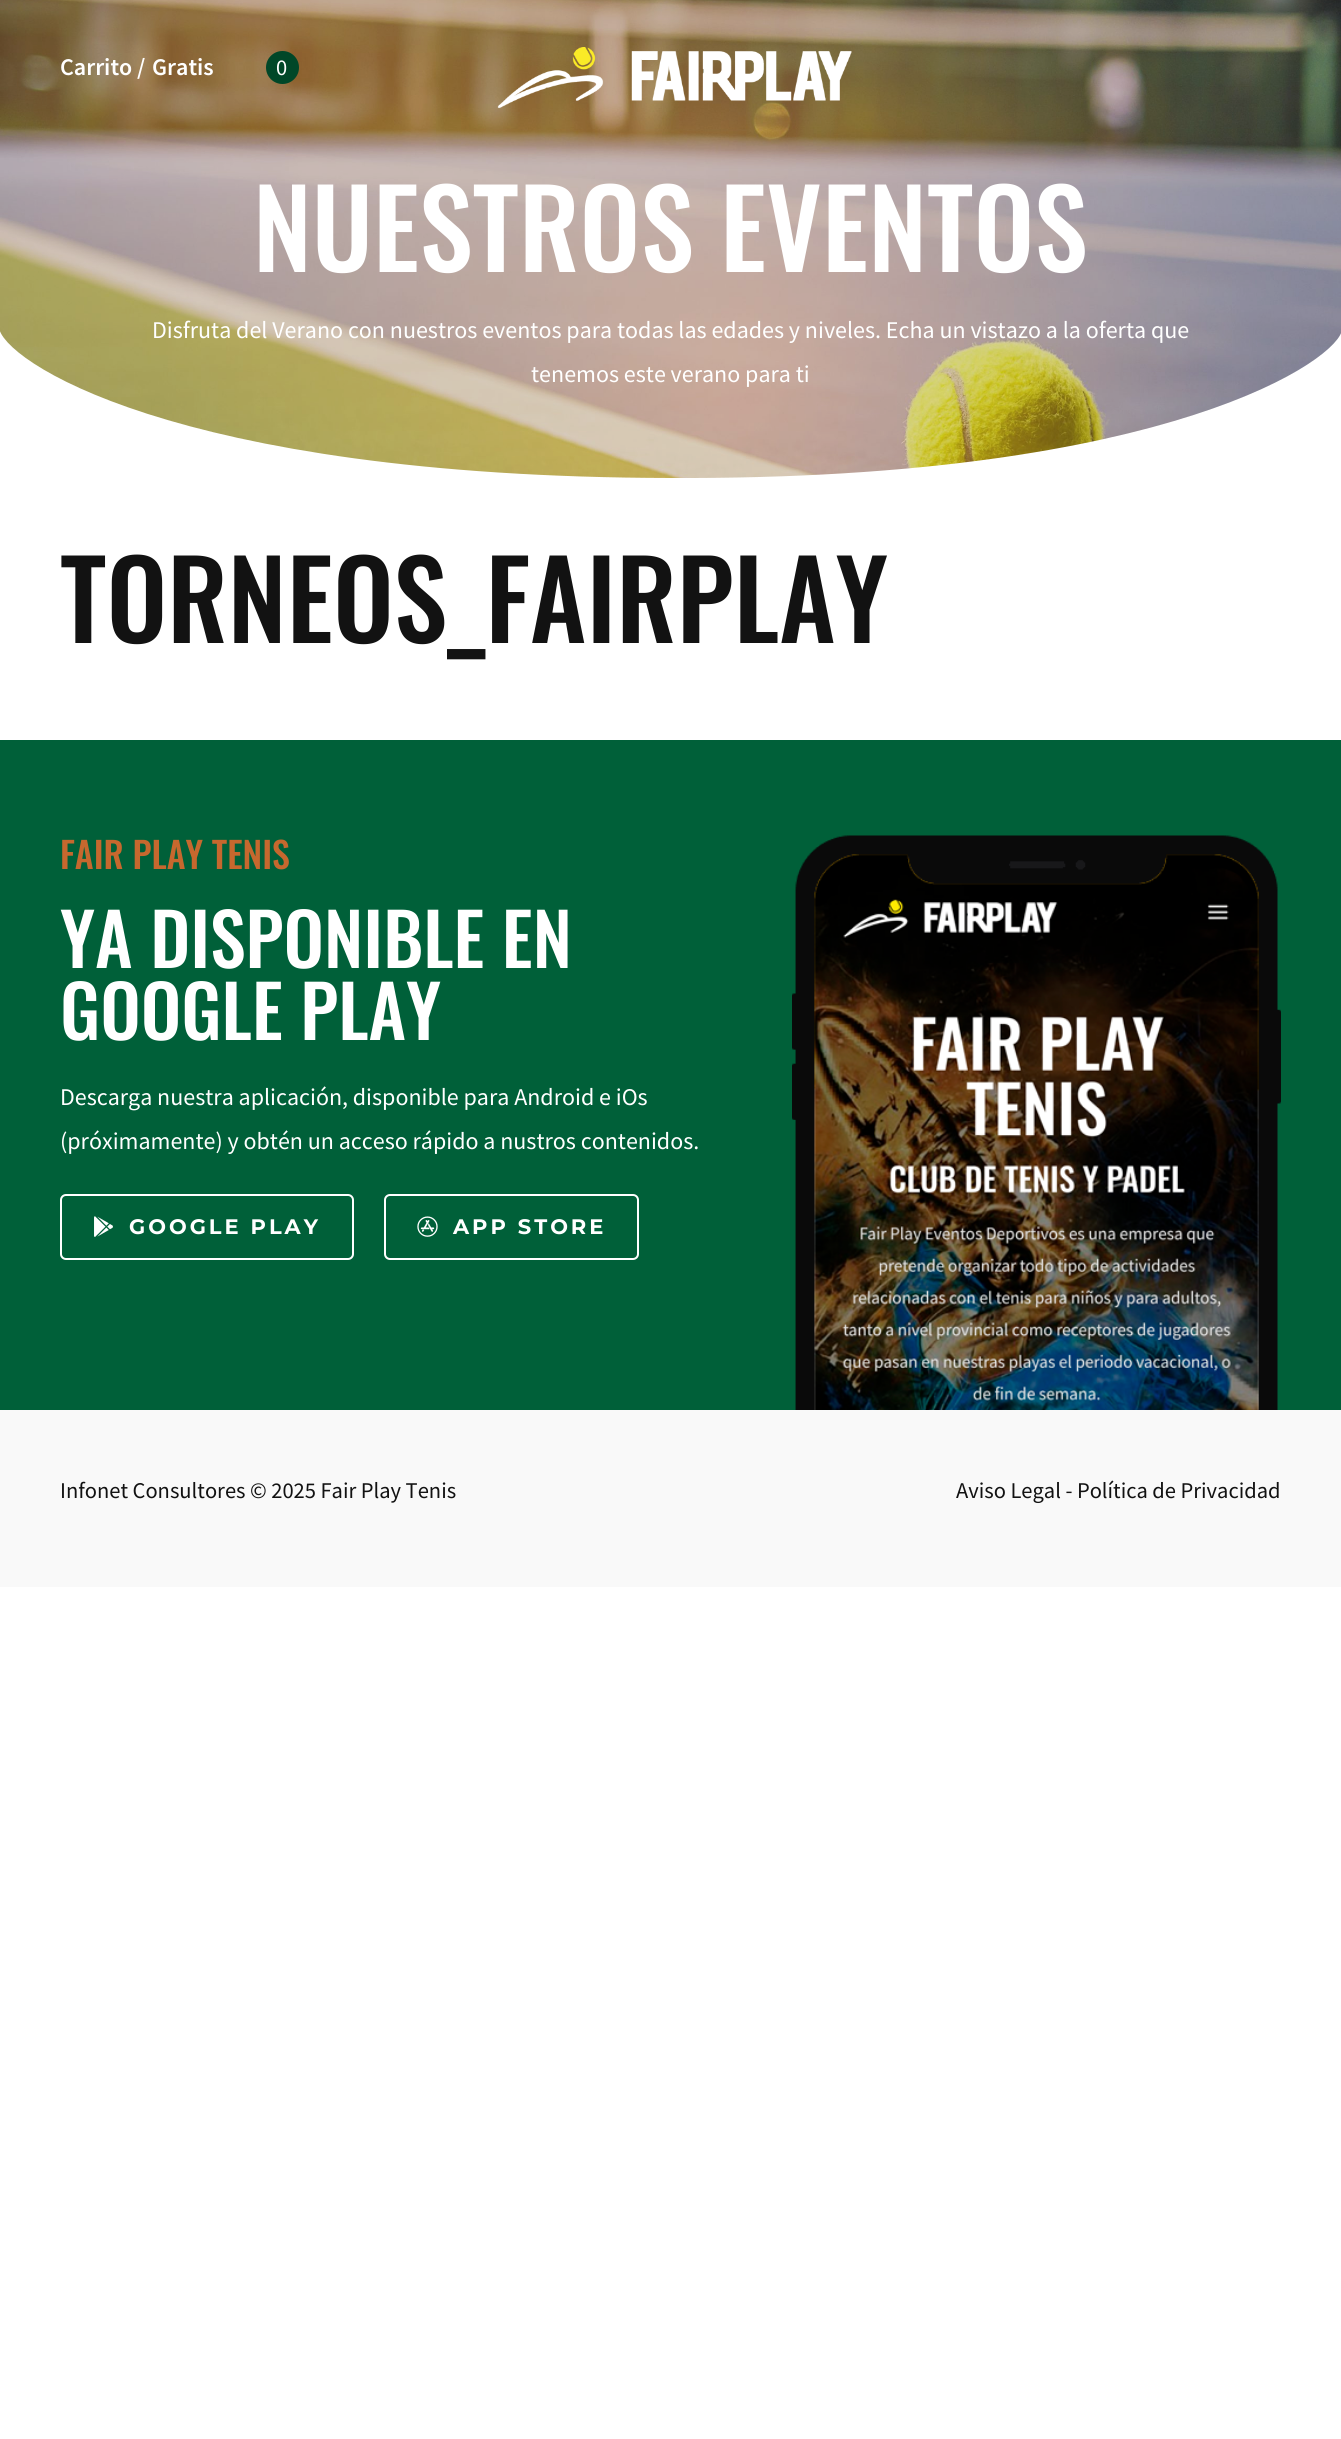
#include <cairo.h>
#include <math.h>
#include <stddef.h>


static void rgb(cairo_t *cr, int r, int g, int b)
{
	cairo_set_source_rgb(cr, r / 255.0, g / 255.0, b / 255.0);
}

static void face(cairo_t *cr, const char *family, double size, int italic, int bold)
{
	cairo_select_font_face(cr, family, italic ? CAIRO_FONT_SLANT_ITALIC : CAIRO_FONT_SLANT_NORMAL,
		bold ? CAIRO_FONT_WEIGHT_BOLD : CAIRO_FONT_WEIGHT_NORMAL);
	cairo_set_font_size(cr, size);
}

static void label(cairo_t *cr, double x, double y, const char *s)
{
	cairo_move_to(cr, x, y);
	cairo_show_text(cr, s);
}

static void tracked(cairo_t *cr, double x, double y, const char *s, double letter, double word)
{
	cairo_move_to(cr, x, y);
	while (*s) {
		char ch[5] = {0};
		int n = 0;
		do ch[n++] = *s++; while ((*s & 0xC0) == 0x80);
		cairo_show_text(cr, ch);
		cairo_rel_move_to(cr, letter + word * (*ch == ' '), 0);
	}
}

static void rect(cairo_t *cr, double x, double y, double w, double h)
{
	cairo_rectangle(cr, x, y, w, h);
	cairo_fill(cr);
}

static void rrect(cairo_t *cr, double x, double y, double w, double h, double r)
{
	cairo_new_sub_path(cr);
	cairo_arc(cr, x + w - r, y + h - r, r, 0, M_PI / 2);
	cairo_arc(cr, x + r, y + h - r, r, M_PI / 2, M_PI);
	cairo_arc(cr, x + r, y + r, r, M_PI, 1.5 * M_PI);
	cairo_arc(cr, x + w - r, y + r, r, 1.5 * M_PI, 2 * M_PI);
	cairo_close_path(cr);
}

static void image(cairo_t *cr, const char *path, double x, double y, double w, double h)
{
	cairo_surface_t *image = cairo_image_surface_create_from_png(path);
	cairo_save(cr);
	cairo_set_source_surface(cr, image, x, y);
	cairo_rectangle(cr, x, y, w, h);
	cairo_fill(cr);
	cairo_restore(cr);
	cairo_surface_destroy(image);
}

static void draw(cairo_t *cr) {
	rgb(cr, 255, 255, 255);
	cairo_paint(cr);
	image(cr, "image0.png", 0, 0, 1341, 478);
	face(cr, "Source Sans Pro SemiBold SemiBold", 24, 0, 0);
	rgb(cr, 255, 255, 255);
	label(cr, 60, 75, "Carrito /");
	label(cr, 152, 75, "Gratis");
	rgb(cr, 0, 71, 40);
	cairo_new_path(cr);
	cairo_arc(cr, 282.5, 67.5, 16.5, 0, 2 * M_PI);
	cairo_fill(cr);
	face(cr, "Source Sans Pro", 22.5, 0, 0);
	rgb(cr, 255, 255, 255);
	label(cr, 276, 75, "0");
	image(cr, "image1.png", 497, 47, 355, 62);
	face(cr, "Oswald Medium", 108, 0, 0);
	label(cr, 253, 272, "NUESTROS EVENTOS");
	cairo_new_path(cr);
	cairo_move_to(cr, 671, 478);
	cairo_curve_to(cr, 169, 477, 0, 358, -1, 327);
	cairo_line_to(cr, -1, 483);
	cairo_line_to(cr, 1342, 483);
	cairo_line_to(cr, 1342, 329);
	cairo_curve_to(cr, 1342, 357, 1172, 480, 671, 478);
	cairo_close_path(cr);
	cairo_fill(cr);
	face(cr, "Source Sans Pro", 24, 0, 0);
	label(cr, 152, 338, "Disfruta del Verano con nuestros eventos para todas las edades y niveles. Echa un vistazo a la oferta que");
	label(cr, 531, 382, "tenemos este verano para ti");
	face(cr, "Oswald Medium", 108, 0, 0);
	rgb(cr, 18, 18, 18);
	label(cr, 60, 643, "TORNEOS_FAIRPLAY");
	rgb(cr, 0, 96, 57);
	rect(cr, 0, 740, 1341, 670);
	face(cr, "Oswald Medium", 36, 0, 0);
	rgb(cr, 198, 104, 46);
	label(cr, 60, 869, "FAIR PLAY TENIS");
	face(cr, "Oswald Medium", 72, 0, 0);
	rgb(cr, 255, 255, 255);
	label(cr, 60, 968, "YA DISPONIBLE EN");
	label(cr, 60, 1040, "GOOGLE PLAY");
	face(cr, "Source Sans Pro", 24, 0, 0);
	label(cr, 60, 1105, "Descarga nuestra aplicación, disponible para Android e iOs");
	label(cr, 60, 1149, "(próximamente) y obtén un acceso rápido a nustros contenidos.");
	rrect(cr, 61, 1195, 292, 64, 5);
	cairo_stroke(cr);
	image(cr, "image2.png", 94, 1216, 19, 21);
	face(cr, "Montserrat Thin", 21, 0, 0);
	tracked(cr, 129, 1234, "GOOGLE PLAY", 3, 0);
	rrect(cr, 385, 1195, 253, 64, 5);
	cairo_stroke(cr);
	image(cr, "image3.png", 417, 1216, 21, 21);
	tracked(cr, 453, 1234, "APP STORE", 3, 0);
	image(cr, "image4.png", 792, 835, 489, 575);
	rgb(cr, 249, 249, 249);
	rect(cr, 0, 1410, 1341, 177);
	face(cr, "Source Sans Pro", 22.5, 0, 0);
	rgb(cr, 18, 18, 18);
	label(cr, 60, 1498, "Infonet Consultores © 2025 Fair Play Tenis");
	label(cr, 956, 1498, "Aviso Legal - Política de Privacidad");
}

int main(void) {
	cairo_surface_t *surface = cairo_image_surface_create(CAIRO_FORMAT_RGB24, 1341, 2439);
	cairo_t *cr = cairo_create(surface);
	cairo_font_options_t *options = cairo_font_options_create();
	cairo_font_options_set_hint_metrics(options, CAIRO_HINT_METRICS_OFF);
	cairo_font_options_set_hint_style(options, CAIRO_HINT_STYLE_NONE);
	cairo_set_font_options(cr, options);
	cairo_set_miter_limit(cr, 4);
	draw(cr);
	cairo_surface_write_to_png(surface, "render.png");
	cairo_font_options_destroy(options);
	cairo_destroy(cr);
	cairo_surface_destroy(surface);
	return 0;
}
